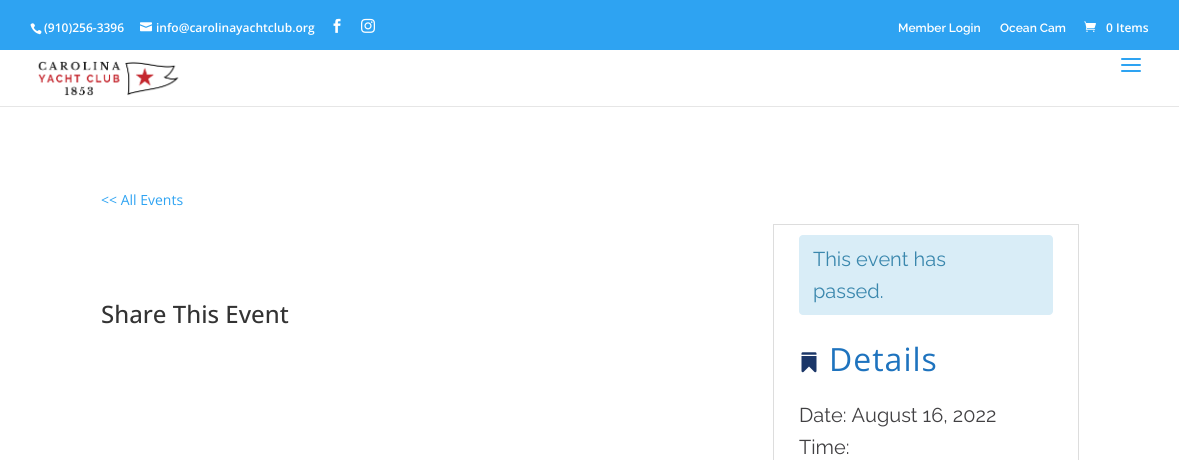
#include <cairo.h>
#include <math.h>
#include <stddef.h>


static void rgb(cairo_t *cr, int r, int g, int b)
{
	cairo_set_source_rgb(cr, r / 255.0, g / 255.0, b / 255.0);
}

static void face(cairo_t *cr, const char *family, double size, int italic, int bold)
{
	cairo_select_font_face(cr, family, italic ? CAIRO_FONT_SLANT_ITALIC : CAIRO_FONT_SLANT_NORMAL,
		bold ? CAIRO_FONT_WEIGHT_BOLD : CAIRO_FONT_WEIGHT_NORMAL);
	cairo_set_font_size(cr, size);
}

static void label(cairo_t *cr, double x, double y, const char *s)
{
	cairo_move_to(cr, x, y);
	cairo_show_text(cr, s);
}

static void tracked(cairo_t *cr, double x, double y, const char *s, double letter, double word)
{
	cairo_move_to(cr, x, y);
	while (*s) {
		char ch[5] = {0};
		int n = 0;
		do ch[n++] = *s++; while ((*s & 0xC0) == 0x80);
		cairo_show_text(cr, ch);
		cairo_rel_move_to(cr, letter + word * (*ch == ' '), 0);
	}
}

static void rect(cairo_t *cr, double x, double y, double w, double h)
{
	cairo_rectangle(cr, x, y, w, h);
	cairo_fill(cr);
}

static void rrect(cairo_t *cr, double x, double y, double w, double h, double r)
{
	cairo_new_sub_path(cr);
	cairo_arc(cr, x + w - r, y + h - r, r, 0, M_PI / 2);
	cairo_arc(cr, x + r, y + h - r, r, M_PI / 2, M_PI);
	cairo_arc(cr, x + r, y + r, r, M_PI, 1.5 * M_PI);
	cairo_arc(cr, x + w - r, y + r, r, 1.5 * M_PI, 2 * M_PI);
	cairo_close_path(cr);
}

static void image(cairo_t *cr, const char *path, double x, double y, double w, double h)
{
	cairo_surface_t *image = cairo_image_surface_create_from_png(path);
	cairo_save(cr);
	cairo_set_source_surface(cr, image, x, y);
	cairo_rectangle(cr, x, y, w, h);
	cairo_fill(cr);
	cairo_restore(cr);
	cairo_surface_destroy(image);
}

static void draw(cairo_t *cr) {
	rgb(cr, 255, 255, 255);
	cairo_paint(cr);
	rgb(cr, 46, 163, 242);
	rect(cr, 0, 0, 1179, 50);
	image(cr, "image0.png", 30, 23, 12, 12);
	face(cr, "Open Sans SemiBold", 12, 0, 0);
	rgb(cr, 255, 255, 255);
	label(cr, 44, 32, "(910)256-3396");
	image(cr, "image1.png", 140, 22, 12, 10);
	label(cr, 156, 32, "info@carolinayachtclub.org");
	image(cr, "image2.png", 333, 18, 8, 15);
	image(cr, "image3.png", 361, 18, 14, 15);
	face(cr, "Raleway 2 Thin", 12, 0, 0);
	label(cr, 898, 32, "Member Login");
	label(cr, 1000, 32, "Ocean Cam");
	image(cr, "image4.png", 1084, 21, 12, 11);
	face(cr, "Open Sans SemiBold", 12, 0, 0);
	label(cr, 1106, 32, "0 Items");
	rgb(cr, 230, 230, 230);
	rect(cr, 0, 106, 1179, 1);
	image(cr, "image5.png", 38, 61, 141, 35);
	image(cr, "image6.png", 1121, 58, 20, 14);
	face(cr, "Open Sans", 14, 0, 0);
	rgb(cr, 46, 163, 242);
	label(cr, 101, 205, "<< All Events");
	face(cr, "Open Sans Medium", 24, 0, 0);
	rgb(cr, 51, 51, 51);
	label(cr, 101, 323, "Share This Event");
	cairo_rectangle(cr, 773.5, 224.5, 305, 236);
	rgb(cr, 221, 221, 221);
	cairo_set_line_width(cr, 1);
	cairo_stroke(cr);
	rgb(cr, 217, 237, 247);
	rrect(cr, 799, 235, 254, 80, 4);
	cairo_fill(cr);
	face(cr, "Raleway Thin", 20, 0, 0);
	rgb(cr, 58, 135, 173);
	label(cr, 813, 266, "This event has");
	label(cr, 813, 298, "passed.");
	image(cr, "image7.png", 801, 352, 16, 21);
	face(cr, "Open Sans", 32, 0, 0);
	rgb(cr, 30, 115, 190);
	tracked(cr, 829, 371, "Details", 1, 0);
	face(cr, "Raleway Thin", 20, 0, 0);
	rgb(cr, 65, 64, 66);
	label(cr, 799, 422, "Date: August 16, 2022");
	label(cr, 799, 454, "Time:");
}

int main(void) {
	cairo_surface_t *surface = cairo_image_surface_create(CAIRO_FORMAT_RGB24, 1179, 460);
	cairo_t *cr = cairo_create(surface);
	cairo_font_options_t *options = cairo_font_options_create();
	cairo_font_options_set_hint_metrics(options, CAIRO_HINT_METRICS_OFF);
	cairo_font_options_set_hint_style(options, CAIRO_HINT_STYLE_NONE);
	cairo_set_font_options(cr, options);
	cairo_set_miter_limit(cr, 4);
	draw(cr);
	cairo_surface_write_to_png(surface, "render.png");
	cairo_font_options_destroy(options);
	cairo_destroy(cr);
	cairo_surface_destroy(surface);
	return 0;
}
